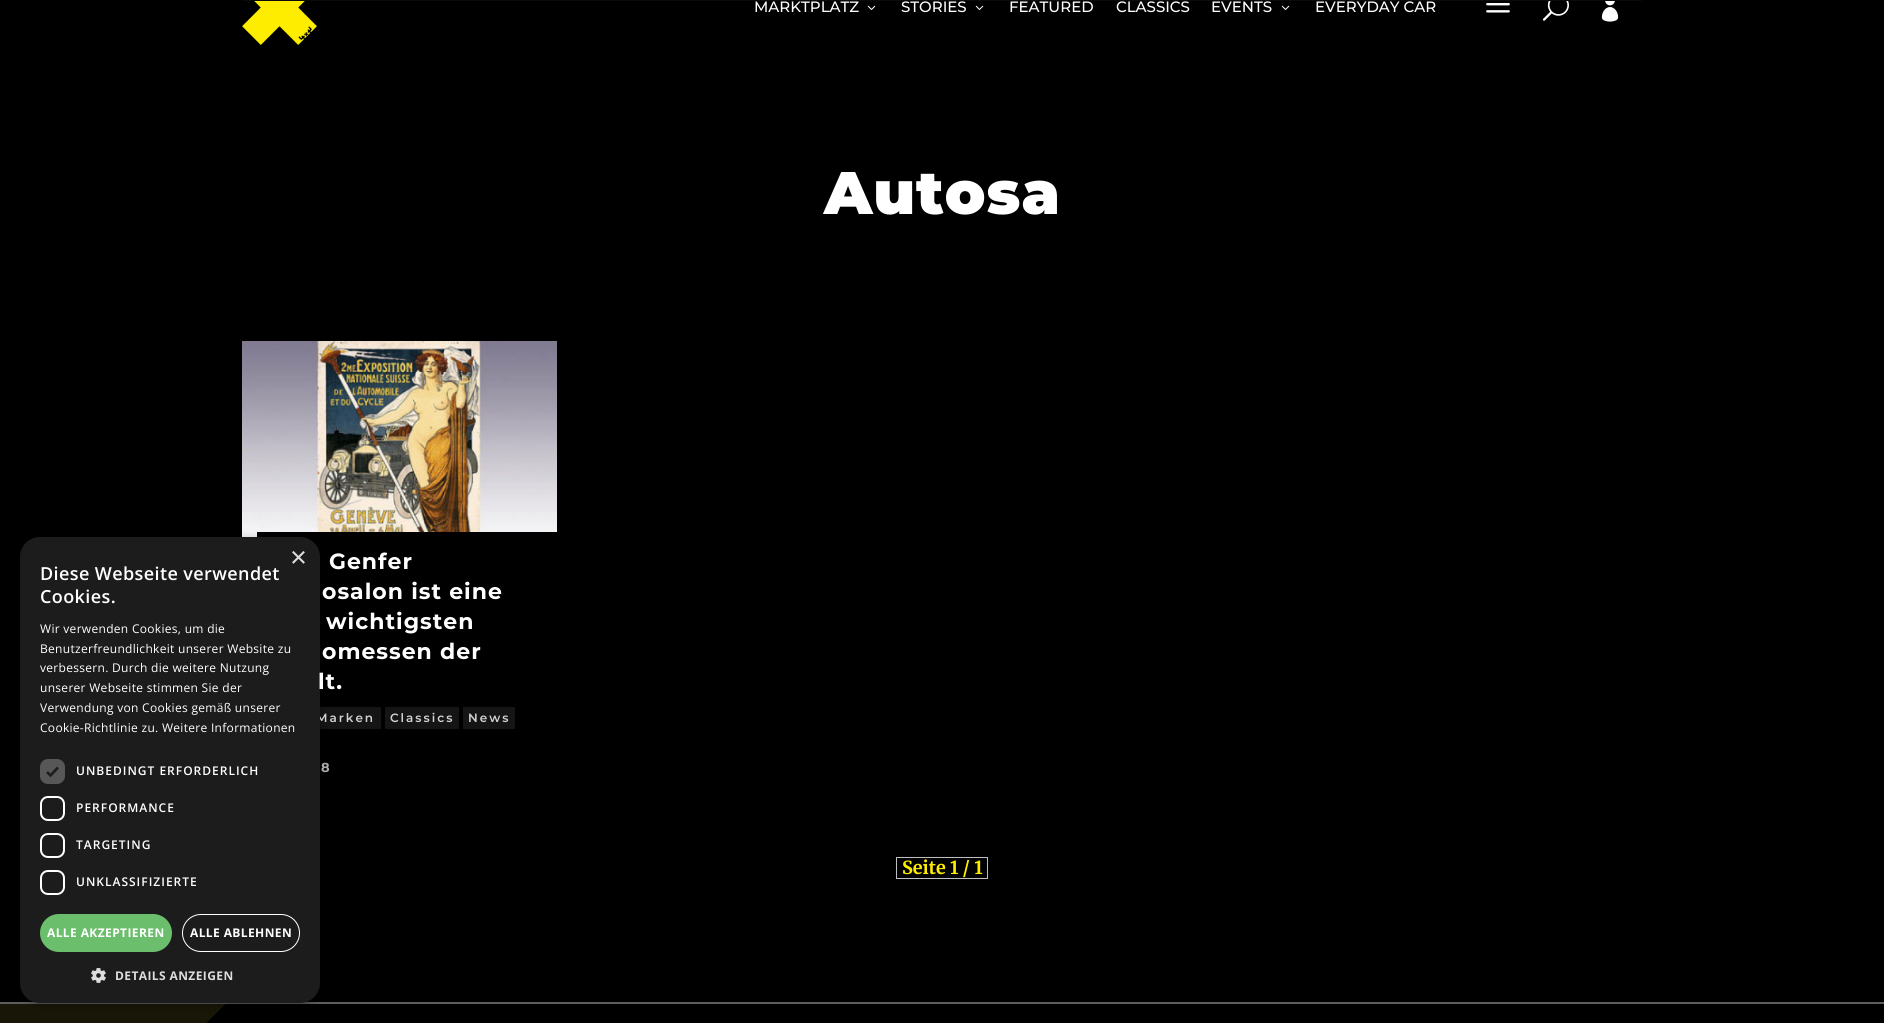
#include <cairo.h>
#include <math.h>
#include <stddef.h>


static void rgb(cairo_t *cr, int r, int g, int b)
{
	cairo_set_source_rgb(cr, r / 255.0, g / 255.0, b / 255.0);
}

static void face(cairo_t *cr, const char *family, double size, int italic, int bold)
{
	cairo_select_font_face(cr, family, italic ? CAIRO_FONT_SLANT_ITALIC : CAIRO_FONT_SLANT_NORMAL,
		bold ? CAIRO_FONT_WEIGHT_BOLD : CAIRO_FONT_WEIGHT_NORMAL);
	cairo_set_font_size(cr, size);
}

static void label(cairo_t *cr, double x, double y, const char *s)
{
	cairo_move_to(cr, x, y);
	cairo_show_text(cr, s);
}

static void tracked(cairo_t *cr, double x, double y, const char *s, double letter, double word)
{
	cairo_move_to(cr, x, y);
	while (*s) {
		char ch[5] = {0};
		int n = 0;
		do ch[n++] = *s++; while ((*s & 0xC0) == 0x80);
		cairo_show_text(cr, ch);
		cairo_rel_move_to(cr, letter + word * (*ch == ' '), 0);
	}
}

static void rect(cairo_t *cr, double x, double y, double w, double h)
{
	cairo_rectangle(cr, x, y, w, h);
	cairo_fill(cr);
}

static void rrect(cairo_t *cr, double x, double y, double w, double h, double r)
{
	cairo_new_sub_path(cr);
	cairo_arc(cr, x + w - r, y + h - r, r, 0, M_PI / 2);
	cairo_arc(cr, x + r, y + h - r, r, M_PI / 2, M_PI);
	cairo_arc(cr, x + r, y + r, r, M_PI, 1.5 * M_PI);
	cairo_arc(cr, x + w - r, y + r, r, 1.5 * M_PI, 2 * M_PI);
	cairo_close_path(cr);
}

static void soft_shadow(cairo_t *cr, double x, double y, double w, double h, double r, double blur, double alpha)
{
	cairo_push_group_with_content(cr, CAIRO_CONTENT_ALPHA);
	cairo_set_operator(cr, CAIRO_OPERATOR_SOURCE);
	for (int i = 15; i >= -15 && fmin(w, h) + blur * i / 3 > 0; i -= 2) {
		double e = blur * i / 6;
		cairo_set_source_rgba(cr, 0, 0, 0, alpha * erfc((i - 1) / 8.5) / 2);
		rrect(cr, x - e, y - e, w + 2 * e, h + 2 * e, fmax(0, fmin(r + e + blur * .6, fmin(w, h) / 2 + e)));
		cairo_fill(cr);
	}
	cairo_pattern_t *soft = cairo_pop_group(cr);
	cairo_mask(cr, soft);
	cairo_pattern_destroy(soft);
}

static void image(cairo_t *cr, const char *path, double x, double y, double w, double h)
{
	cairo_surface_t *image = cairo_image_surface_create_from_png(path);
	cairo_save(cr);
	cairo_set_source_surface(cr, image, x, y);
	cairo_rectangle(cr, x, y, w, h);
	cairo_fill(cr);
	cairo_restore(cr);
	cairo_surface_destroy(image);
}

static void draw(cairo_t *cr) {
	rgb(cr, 0, 0, 0);
	cairo_paint(cr);
	image(cr, "image6.png", 242, 341, 315, 196);
	rgb(cr, 0, 0, 0);
	rect(cr, 257, 532, 300, 5);
	rgb(cr, 21, 21, 21);
	rect(cr, 320, 707, 61, 22);
	rgb(cr, 94, 94, 94);
	rect(cr, 0, 1002, 1884, 2);
	image(cr, "image7.png", 0, 1004, 225, 19);
	rgb(cr, 0, 0, 0);
	soft_shadow(cr, 21, 539, 300, 466, 20, 4, 0.35);
	face(cr, "Montserrat SemiBold", 12, 0, 0);
	rgb(cr, 210, 210, 210);
	tracked(cr, 316, 722, "Marken", 2, 0);
	rgb(cr, 28, 28, 28);
	rrect(cr, 20, 537, 300, 466, 20);
	cairo_fill(cr);
	face(cr, "Liberation Sans", 29, 0, 0);
	rgb(cr, 221, 221, 221);
	label(cr, 290, 567, "×");
	face(cr, "Open Sans SemiBold", 18, 0, 0);
	rgb(cr, 255, 255, 255);
	tracked(cr, 40, 580, "Diese Webseite verwendet", 0.4, 0);
	tracked(cr, 40, 603, "Cookies.", 0.4, 0);
	face(cr, "Open Sans", 12, 0, 0);
	tracked(cr, 40, 633, "Wir verwenden Cookies, um die", 0.3, 0);
	tracked(cr, 40, 653, "Benutzerfreundlichkeit unserer Website zu", 0.3, 0);
	tracked(cr, 40, 672, "verbessern. Durch die weitere Nutzung", 0.3, 0);
	tracked(cr, 40, 692, "unserer Webseite stimmen Sie der", 0.3, 0);
	tracked(cr, 40, 712, "Verwendung von Cookies gemäß unserer", 0.3, 0);
	tracked(cr, 40, 732, "Cookie-Richtlinie zu. Weitere Informationen", 0.3, 0);
	rgb(cr, 87, 87, 87);
	rrect(cr, 40, 759, 25, 25, 8);
	cairo_fill(cr);
	cairo_new_path(cr);
	cairo_move_to(cr, 47, 772);
	cairo_line_to(cr, 50.5, 775.5);
	cairo_line_to(cr, 58, 767.5);
	rgb(cr, 28, 28, 28);
	cairo_set_line_width(cr, 2.6);
	cairo_stroke(cr);
	face(cr, "Open Sans SemiBold", 12, 0, 0);
	rgb(cr, 255, 255, 255);
	tracked(cr, 76, 775, "UNBEDINGT ERFORDERLICH", 1, 0);
	rrect(cr, 41, 797, 23, 23, 7);
	cairo_set_line_width(cr, 2);
	cairo_stroke(cr);
	tracked(cr, 76, 812, "PERFORMANCE", 1, 0);
	rrect(cr, 41, 834, 23, 23, 7);
	cairo_stroke(cr);
	tracked(cr, 76, 849, "TARGETING", 1, 0);
	rrect(cr, 41, 871, 23, 23, 7);
	cairo_stroke(cr);
	tracked(cr, 76, 886, "UNKLASSIFIZIERTE", 1, 0);
	rgb(cr, 107, 190, 107);
	rrect(cr, 40, 914, 132, 38, 19);
	cairo_fill(cr);
	face(cr, "Open Sans", 12, 0, 1);
	rgb(cr, 255, 255, 255);
	tracked(cr, 47, 937, "ALLE AKZEPTIEREN", 0.4, 0);
	rrect(cr, 182.5, 914.5, 117, 37, 18.5);
	cairo_set_line_width(cr, 1);
	cairo_stroke(cr);
	tracked(cr, 190, 937, "ALLE ABLEHNEN", 0.4, 0);
	image(cr, "image0.png", 91, 968, 15, 15);
	rgb(cr, 221, 221, 221);
	tracked(cr, 115, 980, "DETAILS ANZEIGEN", 0.4, 0);
	rgb(cr, 10, 10, 10);
	rect(cr, 242, 0, 1400, 1);
	image(cr, "image1.png", 242, 1, 75, 44);
	face(cr, "Montserrat Medium", 15, 0, 0);
	rgb(cr, 255, 255, 255);
	label(cr, 754, 12, "MARKTPLATZ");
	image(cr, "image2.png", 867, 5, 9, 5);
	label(cr, 901, 12, "STORIES");
	image(cr, "image2.png", 975, 5, 9, 5);
	label(cr, 1009, 12, "FEATURED");
	label(cr, 1116, 12, "CLASSICS");
	label(cr, 1211, 12, "EVENTS");
	image(cr, "image2.png", 1281, 5, 9, 5);
	label(cr, 1315, 12, "EVERYDAY CAR");
	image(cr, "image3.png", 1486, 3, 24, 10);
	image(cr, "image4.png", 1542, 1, 27, 20);
	image(cr, "image5.png", 1601, 1, 18, 21);
	face(cr, "Montserrat Black", 60, 0, 0);
	tracked(cr, 824, 214, "Autosa", 1, 0);
	face(cr, "Montserrat", 22, 0, 1);
	tracked(cr, 329, 569, "Genfer", 1, 0);
	tracked(cr, 322, 599, "osalon ist eine", 1, 0);
	tracked(cr, 326, 629, "wichtigsten", 1, 0);
	tracked(cr, 322, 659, "omessen der", 1, 0);
	tracked(cr, 318, 689, "lt.", 1, 0);
	rgb(cr, 21, 21, 21);
	rect(cr, 385, 707, 74, 22);
	face(cr, "Montserrat SemiBold", 12, 0, 0);
	rgb(cr, 210, 210, 210);
	tracked(cr, 390, 722, "Classics", 2, 0);
	rgb(cr, 21, 21, 21);
	rect(cr, 463, 707, 52, 22);
	rgb(cr, 210, 210, 210);
	tracked(cr, 468, 722, "News", 2, 0);
	face(cr, "Montserrat", 13, 0, 1);
	rgb(cr, 171, 171, 171);
	label(cr, 321, 772, "8");
	cairo_rectangle(cr, 896.5, 857.5, 91, 21);
	rgb(cr, 191, 191, 191);
	cairo_stroke(cr);
	face(cr, "Merriweather", 18, 0, 1);
	rgb(cr, 255, 237, 0);
	label(cr, 902, 874, "Seite 1 / 1");
}

int main(void) {
	cairo_surface_t *surface = cairo_image_surface_create(CAIRO_FORMAT_RGB24, 1884, 1023);
	cairo_t *cr = cairo_create(surface);
	cairo_font_options_t *options = cairo_font_options_create();
	cairo_font_options_set_hint_metrics(options, CAIRO_HINT_METRICS_OFF);
	cairo_font_options_set_hint_style(options, CAIRO_HINT_STYLE_NONE);
	cairo_set_font_options(cr, options);
	cairo_set_miter_limit(cr, 4);
	draw(cr);
	cairo_surface_write_to_png(surface, "render.png");
	cairo_font_options_destroy(options);
	cairo_destroy(cr);
	cairo_surface_destroy(surface);
	return 0;
}
